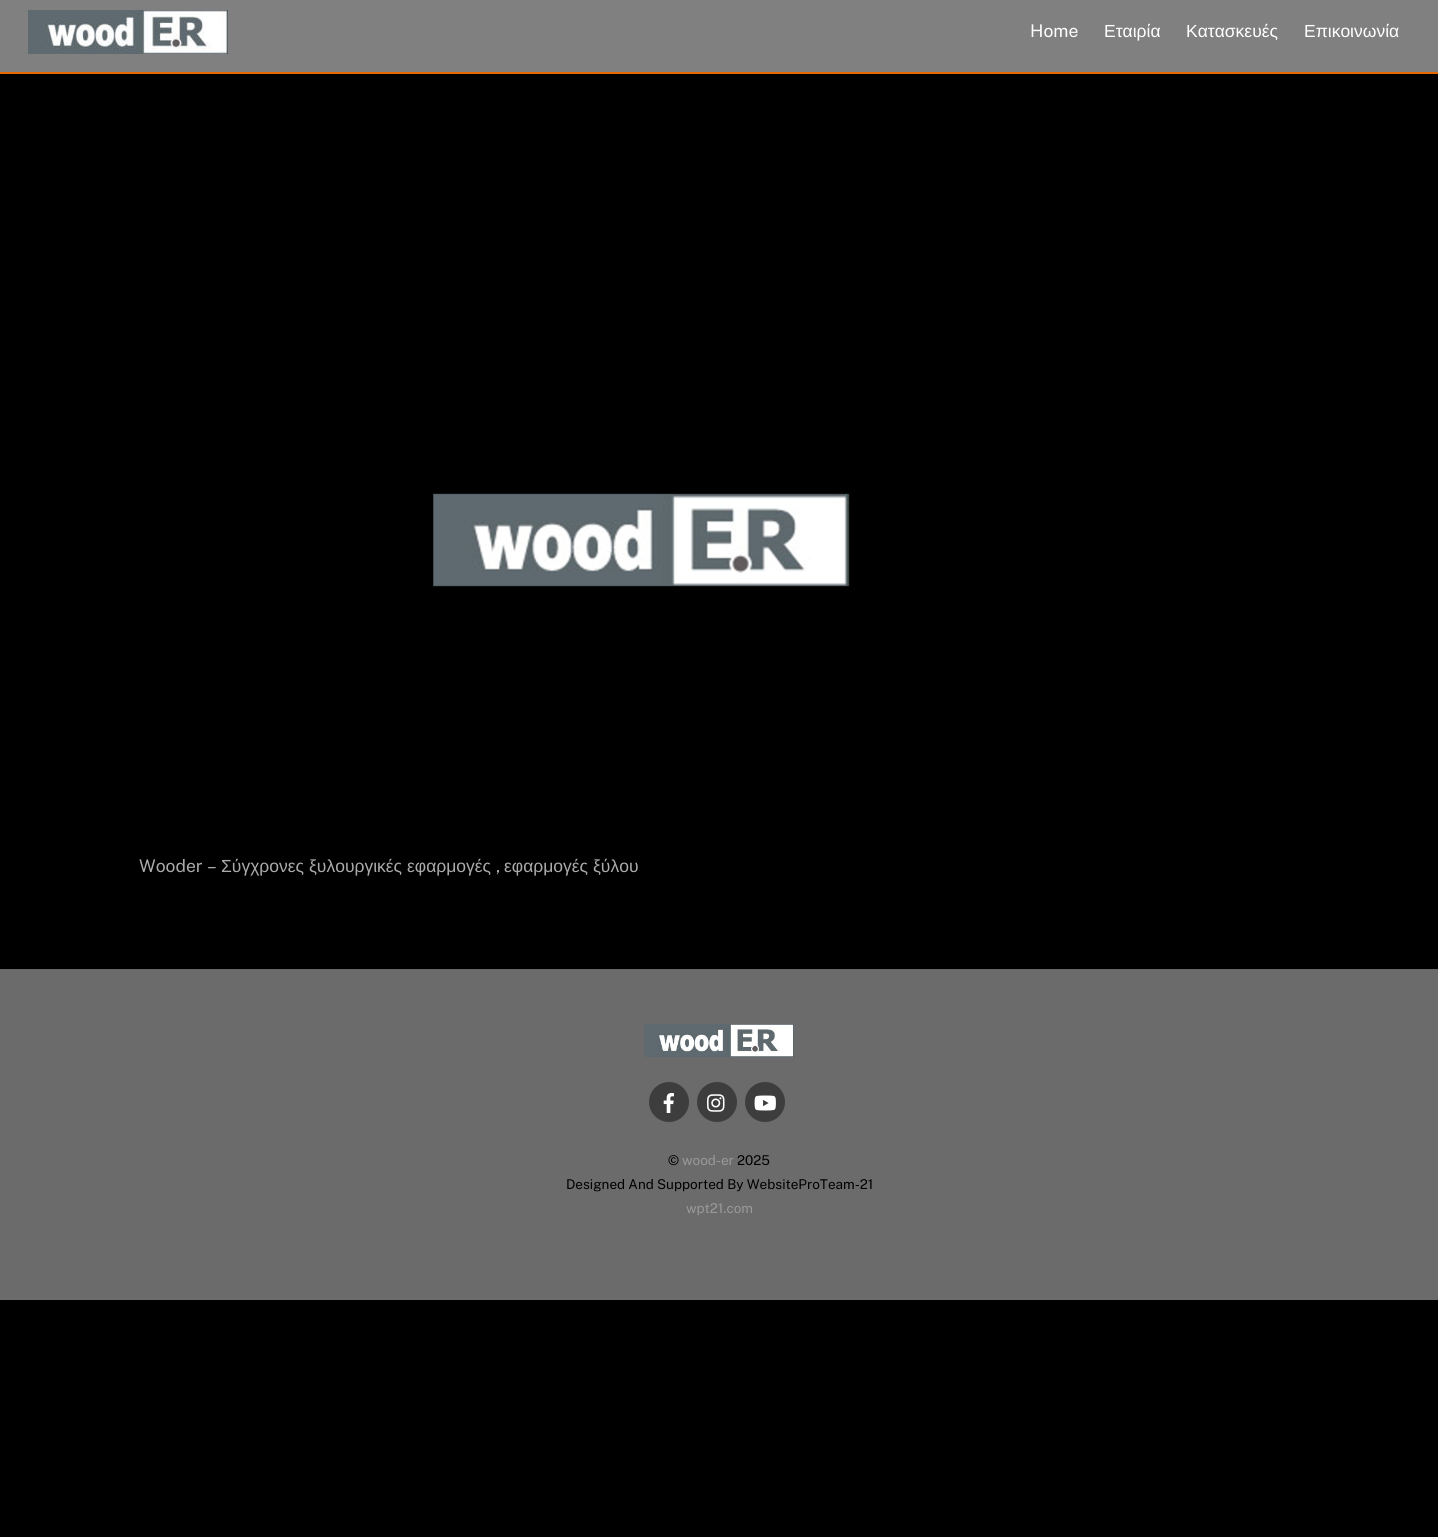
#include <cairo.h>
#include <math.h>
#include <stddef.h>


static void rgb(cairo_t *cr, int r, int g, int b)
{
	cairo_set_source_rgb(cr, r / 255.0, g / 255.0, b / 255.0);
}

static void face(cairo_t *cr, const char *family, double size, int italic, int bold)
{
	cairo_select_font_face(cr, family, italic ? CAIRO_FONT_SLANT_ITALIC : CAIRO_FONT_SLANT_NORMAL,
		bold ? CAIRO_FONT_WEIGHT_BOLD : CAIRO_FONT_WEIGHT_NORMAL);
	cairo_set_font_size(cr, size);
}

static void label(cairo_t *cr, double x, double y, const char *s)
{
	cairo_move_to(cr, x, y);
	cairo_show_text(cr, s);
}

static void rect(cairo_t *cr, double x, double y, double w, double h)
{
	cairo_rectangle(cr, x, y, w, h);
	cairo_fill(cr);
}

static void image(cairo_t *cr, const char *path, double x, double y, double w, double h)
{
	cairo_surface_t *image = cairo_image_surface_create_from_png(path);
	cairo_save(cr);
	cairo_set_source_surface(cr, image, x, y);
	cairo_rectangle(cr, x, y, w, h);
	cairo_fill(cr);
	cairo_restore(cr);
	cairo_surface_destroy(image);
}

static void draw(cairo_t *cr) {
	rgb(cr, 0, 0, 0);
	cairo_paint(cr);
	rgb(cr, 128, 128, 128);
	rect(cr, 0, 0, 1438, 72);
	rgb(cr, 230, 104, 0);
	rect(cr, 0, 72, 1438, 2);
	image(cr, "image0.png", 28, 10, 200, 44);
	face(cr, "Public Sans", 17.5, 0, 0);
	rgb(cr, 255, 255, 255);
	label(cr, 1030, 37, "Home");
	face(cr, "Liberation Sans", 17.5, 0, 0);
	label(cr, 1104, 37, "Εταιρία");
	label(cr, 1186, 37, "Κατασκευές");
	label(cr, 1304, 37, "Επικοινωνία");
	image(cr, "image1.png", 433, 493, 417, 94);
	face(cr, "Public Sans", 17.5, 0, 0);
	rgb(cr, 171, 171, 171);
	label(cr, 139, 872, "Wooder –");
	face(cr, "Liberation Sans", 17.5, 0, 0);
	label(cr, 221, 872, "Σύγχρονες");
	label(cr, 309, 872, "ξυλουργικές");
	label(cr, 407, 872, "εφαρμογές");
	face(cr, "Public Sans", 17.5, 0, 0);
	label(cr, 496, 872, ",");
	face(cr, "Liberation Sans", 17.5, 0, 0);
	label(cr, 504, 872, "εφαρμογές");
	label(cr, 593, 872, "ξύλου");
	rgb(cr, 107, 107, 107);
	rect(cr, 0, 970, 1438, 330);
	rgb(cr, 102, 102, 102);
	rect(cr, 0, 969, 1438, 1);
	image(cr, "image2.png", 644, 1024, 150, 33);
	rgb(cr, 61, 61, 61);
	cairo_arc(cr, 669, 1102, 20, 0, 2 * M_PI);
	cairo_fill(cr);
	image(cr, "image3.png", 663, 1093, 11, 20);
	cairo_arc(cr, 717, 1102, 20, 0, 2 * M_PI);
	cairo_fill(cr);
	image(cr, "image4.png", 707, 1094, 18, 18);
	cairo_arc(cr, 765, 1102, 20, 0, 2 * M_PI);
	cairo_fill(cr);
	image(cr, "image5.png", 754, 1095, 22, 16);
	face(cr, "Public Sans", 13.5, 0, 0);
	rgb(cr, 0, 0, 0);
	label(cr, 668, 1165, "©");
	rgb(cr, 153, 153, 153);
	label(cr, 682, 1165, "wood-er");
	rgb(cr, 0, 0, 0);
	label(cr, 737, 1165, "2025");
	label(cr, 566, 1189, "Designed And Supported By WebsiteProTeam-21");
	rgb(cr, 153, 153, 153);
	label(cr, 686, 1213, "wpt21.com");
}

int main(void) {
	cairo_surface_t *surface = cairo_image_surface_create(CAIRO_FORMAT_RGB24, 1438, 1537);
	cairo_t *cr = cairo_create(surface);
	cairo_font_options_t *options = cairo_font_options_create();
	cairo_font_options_set_hint_metrics(options, CAIRO_HINT_METRICS_OFF);
	cairo_font_options_set_hint_style(options, CAIRO_HINT_STYLE_NONE);
	cairo_set_font_options(cr, options);
	cairo_set_miter_limit(cr, 4);
	draw(cr);
	cairo_surface_write_to_png(surface, "render.png");
	cairo_font_options_destroy(options);
	cairo_destroy(cr);
	cairo_surface_destroy(surface);
	return 0;
}
